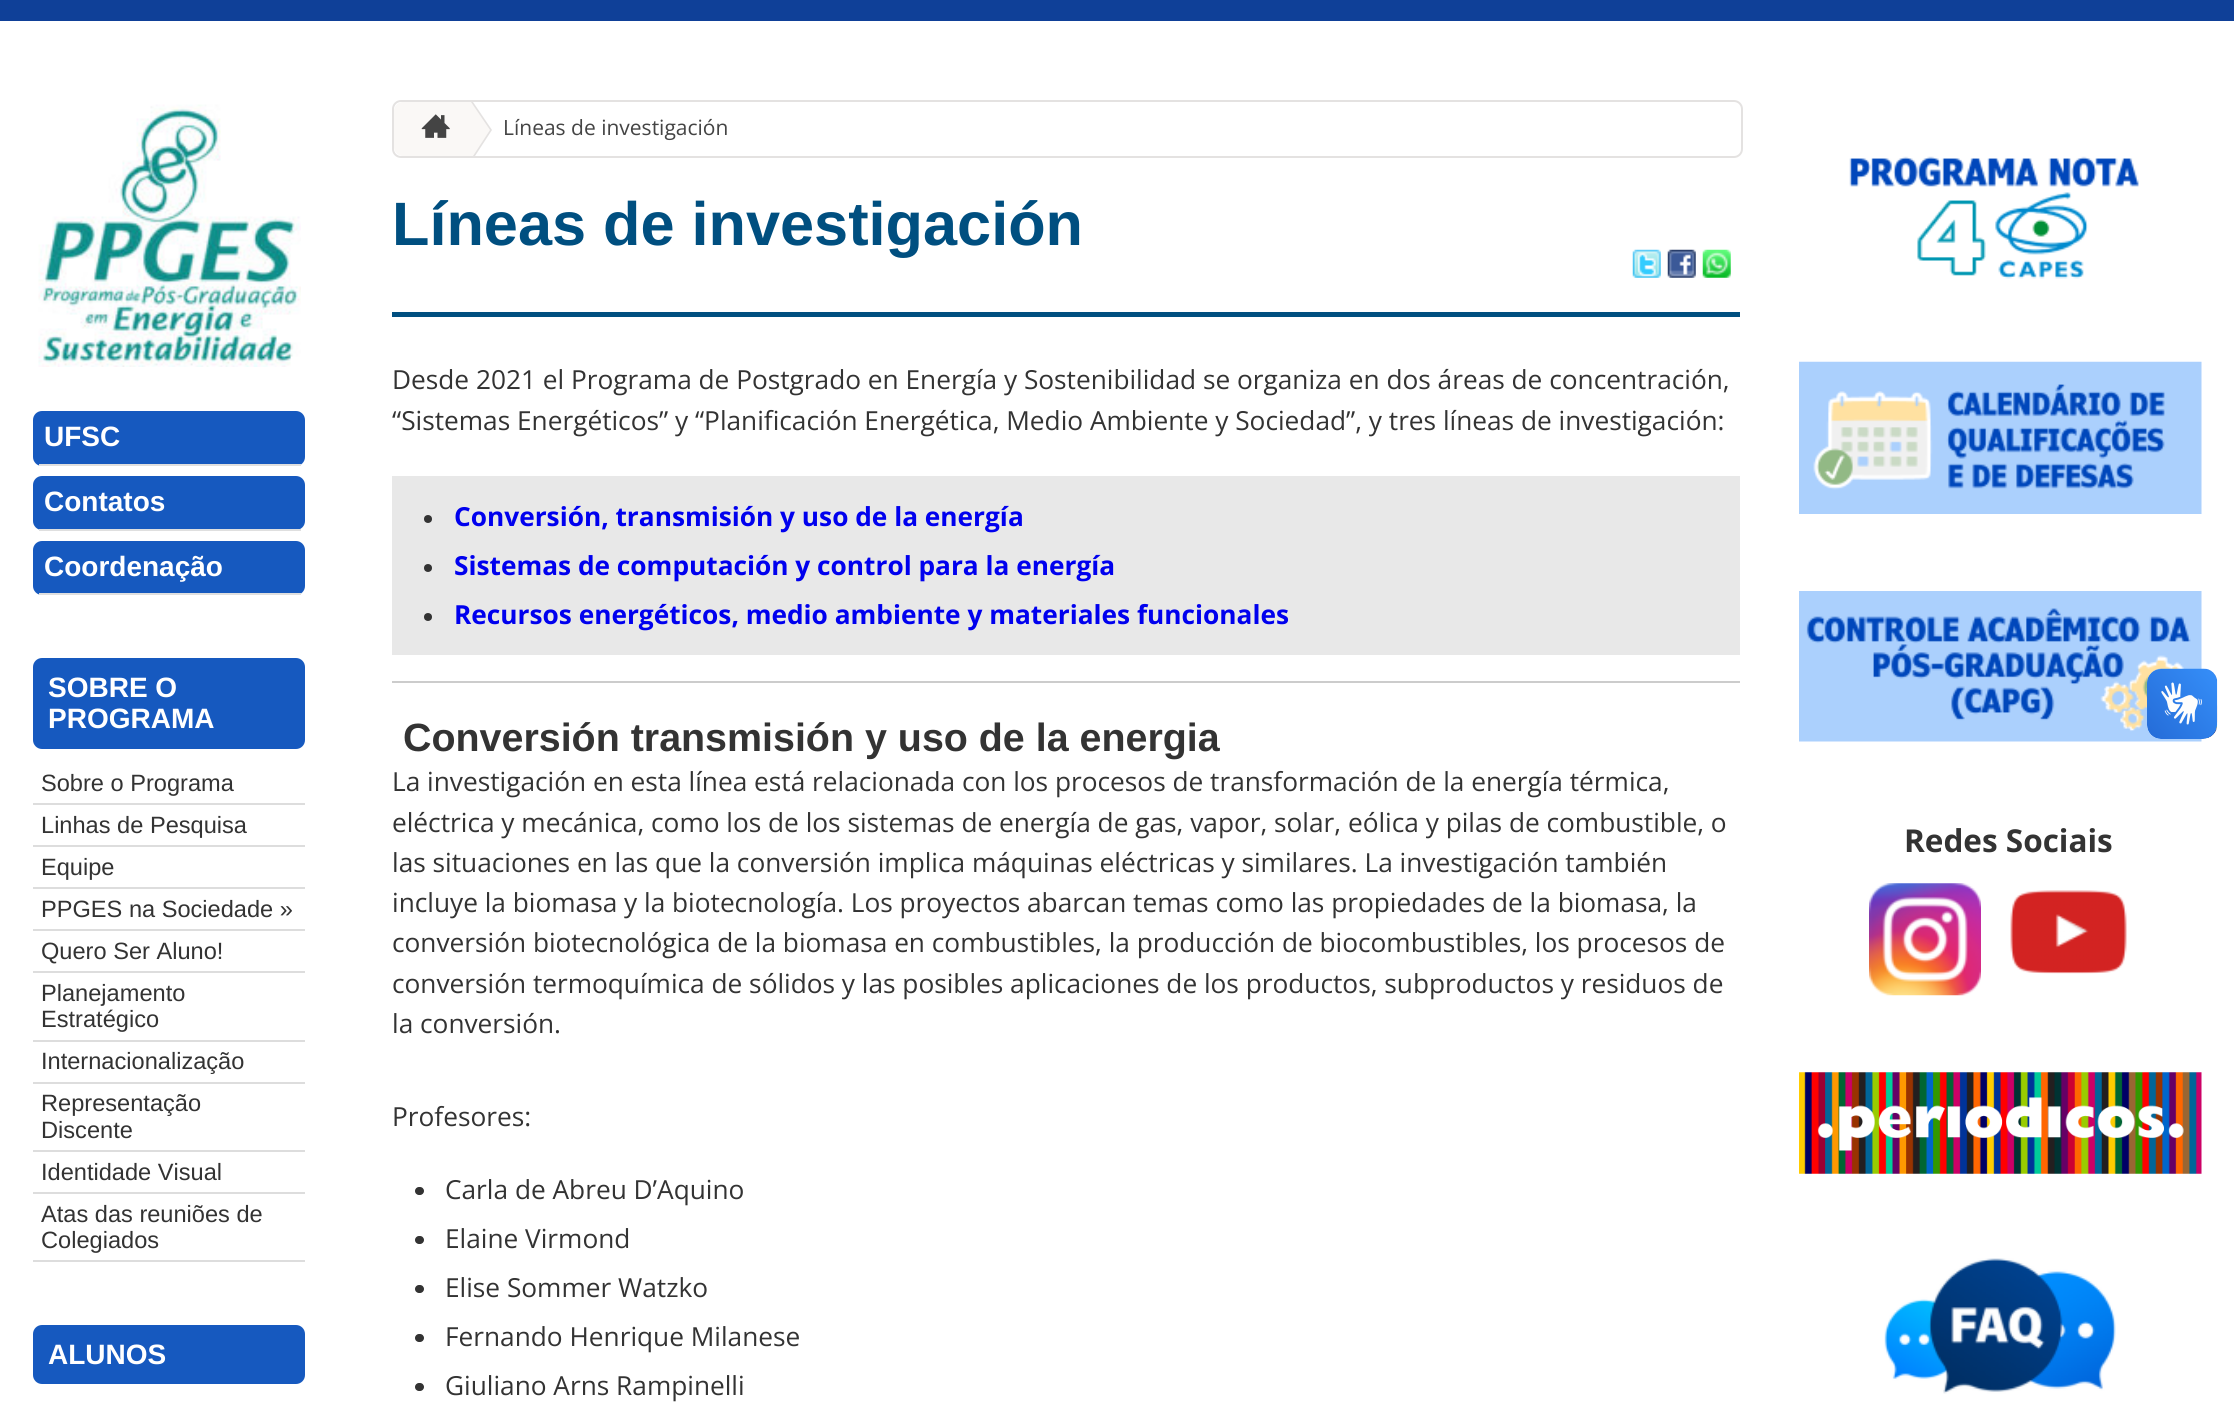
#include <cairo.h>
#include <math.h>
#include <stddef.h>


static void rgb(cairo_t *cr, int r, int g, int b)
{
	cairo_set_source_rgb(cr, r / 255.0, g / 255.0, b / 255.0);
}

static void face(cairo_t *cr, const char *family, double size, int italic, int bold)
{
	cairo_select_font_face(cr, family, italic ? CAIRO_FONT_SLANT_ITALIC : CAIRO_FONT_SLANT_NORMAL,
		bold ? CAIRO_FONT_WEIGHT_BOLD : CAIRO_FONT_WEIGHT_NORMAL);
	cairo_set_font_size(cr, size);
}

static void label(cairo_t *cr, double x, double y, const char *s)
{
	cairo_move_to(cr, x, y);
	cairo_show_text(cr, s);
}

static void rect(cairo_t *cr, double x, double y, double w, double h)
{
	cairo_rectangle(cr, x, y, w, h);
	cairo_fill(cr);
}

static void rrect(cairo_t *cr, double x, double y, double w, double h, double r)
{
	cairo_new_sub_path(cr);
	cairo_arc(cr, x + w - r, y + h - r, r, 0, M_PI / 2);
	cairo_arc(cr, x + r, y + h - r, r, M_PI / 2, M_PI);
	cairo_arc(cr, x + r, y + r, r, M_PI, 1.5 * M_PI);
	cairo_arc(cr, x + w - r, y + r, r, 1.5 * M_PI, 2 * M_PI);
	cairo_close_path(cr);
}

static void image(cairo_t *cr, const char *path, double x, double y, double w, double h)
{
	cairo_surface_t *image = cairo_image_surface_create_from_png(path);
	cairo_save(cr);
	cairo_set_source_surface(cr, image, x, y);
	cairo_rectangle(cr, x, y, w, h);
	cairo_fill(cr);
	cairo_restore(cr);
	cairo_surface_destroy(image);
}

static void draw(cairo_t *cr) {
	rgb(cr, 255, 255, 255);
	cairo_paint(cr);
	rgb(cr, 15, 64, 152);
	rect(cr, 0, 0, 2234, 21);
	image(cr, "image0.png", 38, 104, 263, 263);
	rgb(cr, 22, 89, 191);
	rrect(cr, 33, 411, 272, 55, 9);
	cairo_fill(cr);
	rgb(cr, 223, 223, 223);
	rect(cr, 39, 464, 262, 2);
	face(cr, "Liberation Sans", 28, 0, 1);
	rgb(cr, 255, 255, 255);
	label(cr, 44, 446, "UFSC");
	rgb(cr, 22, 89, 191);
	rrect(cr, 33, 476, 272, 54, 9);
	cairo_fill(cr);
	rgb(cr, 223, 223, 223);
	rect(cr, 39, 529, 262, 2);
	rgb(cr, 255, 255, 255);
	label(cr, 44, 511, "Contatos");
	rgb(cr, 22, 89, 191);
	rrect(cr, 33, 541, 272, 54, 9);
	cairo_fill(cr);
	rgb(cr, 223, 223, 223);
	rect(cr, 39, 593, 262, 2);
	rgb(cr, 255, 255, 255);
	label(cr, 44, 576, "Coordenação");
	rgb(cr, 22, 89, 191);
	rrect(cr, 33, 658, 272, 91, 9);
	cairo_fill(cr);
	rgb(cr, 255, 255, 255);
	label(cr, 48, 697, "SOBRE O");
	label(cr, 48, 728, "PROGRAMA");
	rgb(cr, 221, 221, 221);
	rect(cr, 33, 803, 272, 2);
	face(cr, "Liberation Sans", 23.6, 0, 0);
	rgb(cr, 51, 51, 51);
	label(cr, 41, 791, "Sobre o Programa");
	rgb(cr, 221, 221, 221);
	rect(cr, 33, 845, 272, 2);
	rgb(cr, 51, 51, 51);
	label(cr, 41, 833, "Linhas de Pesquisa");
	rgb(cr, 221, 221, 221);
	rect(cr, 33, 887, 272, 2);
	rgb(cr, 51, 51, 51);
	label(cr, 41, 875, "Equipe");
	rgb(cr, 221, 221, 221);
	rect(cr, 33, 929, 272, 2);
	rgb(cr, 51, 51, 51);
	label(cr, 41, 917, "PPGES na Sociedade »");
	rgb(cr, 221, 221, 221);
	rect(cr, 33, 971, 272, 2);
	rgb(cr, 51, 51, 51);
	label(cr, 41, 959, "Quero Ser Aluno!");
	rgb(cr, 221, 221, 221);
	rect(cr, 33, 1040, 272, 2);
	rgb(cr, 51, 51, 51);
	label(cr, 41, 1001, "Planejamento");
	label(cr, 41, 1027, "Estratégico");
	rgb(cr, 221, 221, 221);
	rect(cr, 33, 1082, 272, 2);
	rgb(cr, 51, 51, 51);
	label(cr, 41, 1069, "Internacionalização");
	rgb(cr, 221, 221, 221);
	rect(cr, 33, 1150, 272, 2);
	rgb(cr, 51, 51, 51);
	label(cr, 41, 1111, "Representação");
	label(cr, 41, 1138, "Discente");
	rgb(cr, 221, 221, 221);
	rect(cr, 33, 1192, 272, 2);
	rgb(cr, 51, 51, 51);
	label(cr, 41, 1180, "Identidade Visual");
	rgb(cr, 221, 221, 221);
	rect(cr, 33, 1260, 272, 2);
	rgb(cr, 51, 51, 51);
	label(cr, 41, 1222, "Atas das reuniões de");
	label(cr, 41, 1248, "Colegiados");
	rgb(cr, 22, 89, 191);
	rrect(cr, 33, 1325, 272, 59, 9);
	cairo_fill(cr);
	face(cr, "Liberation Sans", 28, 0, 1);
	rgb(cr, 255, 255, 255);
	label(cr, 48, 1364, "ALUNOS");
	rrect(cr, 393, 101, 1349, 56, 8);
	rgb(cr, 228, 226, 225);
	cairo_stroke(cr);
	rgb(cr, 250, 248, 246);
	cairo_new_path(cr);
	cairo_move_to(cr, 403, 102);
	cairo_line_to(cr, 462, 102);
	cairo_line_to(cr, 462, 156);
	cairo_line_to(cr, 403, 156);
	cairo_curve_to(cr, 398, 156, 394, 152, 394, 147);
	cairo_line_to(cr, 394, 111);
	cairo_curve_to(cr, 394, 106, 398, 102, 403, 102);
	cairo_close_path(cr);
	cairo_fill(cr);
	rgb(cr, 228, 226, 225);
	cairo_new_path(cr);
	cairo_move_to(cr, 473, 102);
	cairo_line_to(cr, 492, 130);
	cairo_line_to(cr, 475, 156);
	cairo_line_to(cr, 464, 156);
	cairo_line_to(cr, 464, 102);
	cairo_close_path(cr);
	cairo_fill(cr);
	rgb(cr, 250, 248, 246);
	cairo_new_path(cr);
	cairo_move_to(cr, 471, 102);
	cairo_line_to(cr, 490, 130);
	cairo_line_to(cr, 473, 156);
	cairo_line_to(cr, 462, 156);
	cairo_line_to(cr, 462, 102);
	cairo_close_path(cr);
	cairo_fill(cr);
	image(cr, "image1.png", 421, 114, 29, 24);
	face(cr, "Open Sans", 21, 0, 0);
	rgb(cr, 68, 68, 68);
	label(cr, 503, 135, "Líneas de investigación");
	face(cr, "Liberation Sans", 61.25, 0, 1);
	rgb(cr, 0, 79, 128);
	label(cr, 392, 245, "Líneas de investigación");
	rect(cr, 392, 312, 1348, 5);
	image(cr, "image2.png", 1632, 249, 29, 29);
	image(cr, "image3.png", 1667, 249, 29, 29);
	image(cr, "image4.png", 1702, 249, 29, 29);
	face(cr, "Open Sans", 26.25, 0, 0);
	rgb(cr, 51, 51, 51);
	label(cr, 392, 389, "Desde 2021 el Programa de Postgrado en Energía y Sostenibilidad se organiza en dos áreas de concentración,");
	label(cr, 392, 430, "“Sistemas Energéticos” y “Planificación Energética, Medio Ambiente y Sociedad”, y tres líneas de investigación:");
	rgb(cr, 232, 232, 232);
	rect(cr, 392, 476, 1348, 179);
	rgb(cr, 51, 51, 51);
	cairo_new_path(cr);
	cairo_arc(cr, 428, 519, 4, 0, 2 * M_PI);
	cairo_fill(cr);
	face(cr, "Open Sans", 26.25, 0, 1);
	rgb(cr, 0, 0, 238);
	label(cr, 454, 526, "Conversión, transmisión y uso de la energía");
	rgb(cr, 51, 51, 51);
	cairo_new_path(cr);
	cairo_arc(cr, 428, 568, 4, 0, 2 * M_PI);
	cairo_fill(cr);
	rgb(cr, 0, 0, 238);
	label(cr, 454, 575, "Sistemas de computación y control para la energía");
	rgb(cr, 51, 51, 51);
	cairo_new_path(cr);
	cairo_arc(cr, 428, 617, 4, 0, 2 * M_PI);
	cairo_fill(cr);
	rgb(cr, 0, 0, 238);
	label(cr, 454, 624, "Recursos energéticos, medio ambiente y materiales funcionales");
	rgb(cr, 204, 204, 204);
	rect(cr, 392, 681, 1348, 2);
	face(cr, "Liberation Sans", 39.4, 0, 1);
	rgb(cr, 51, 51, 51);
	label(cr, 403, 751, "Conversión transmisión y uso de la energia");
	face(cr, "Open Sans", 26.25, 0, 0);
	label(cr, 392, 791, "La investigación en esta línea está relacionada con los procesos de transformación de la energía térmica,");
	label(cr, 392, 832, "eléctrica y mecánica, como los de los sistemas de energía de gas, vapor, solar, eólica y pilas de combustible, o");
	label(cr, 392, 872, "las situaciones en las que la conversión implica máquinas eléctricas y similares. La investigación también");
	label(cr, 392, 912, "incluye la biomasa y la biotecnología. Los proyectos abarcan temas como las propiedades de la biomasa, la");
	label(cr, 392, 952, "conversión biotecnológica de la biomasa en combustibles, la producción de biocombustibles, los procesos de");
	label(cr, 392, 993, "conversión termoquímica de sólidos y las posibles aplicaciones de los productos, subproductos y residuos de");
	label(cr, 392, 1033, "la conversión.");
	label(cr, 392, 1126, "Profesores:");
	rrect(cr, 415, 1187, 9, 8, 4);
	cairo_fill(cr);
	label(cr, 445, 1199, "Carla de Abreu D’Aquino");
	rrect(cr, 415, 1236, 9, 8, 4);
	cairo_fill(cr);
	label(cr, 445, 1248, "Elaine Virmond");
	rrect(cr, 415, 1285, 9, 8, 4);
	cairo_fill(cr);
	label(cr, 445, 1297, "Elise Sommer Watzko");
	rrect(cr, 415, 1334, 9, 8, 4);
	cairo_fill(cr);
	label(cr, 445, 1346, "Fernando Henrique Milanese");
	rrect(cr, 415, 1383, 9, 8, 4);
	cairo_fill(cr);
	label(cr, 445, 1395, "Giuliano Arns Rampinelli");
	image(cr, "image5.png", 1849, 156, 290, 123);
	image(cr, "image6.png", 1799, 361, 403, 153);
	image(cr, "image7.png", 1799, 591, 403, 151);
	face(cr, "Open Sans", 31.5, 0, 1);
	label(cr, 1904, 852, "Redes Sociais");
	image(cr, "image8.png", 1869, 883, 112, 113);
	image(cr, "image9.png", 2010, 890, 117, 84);
	image(cr, "image10.png", 1799, 1072, 403, 102);
	image(cr, "image11.png", 1884, 1258, 232, 136);
	image(cr, "image12.png", 2147, 668, 71, 71);
	image(cr, "image13.png", 2147, 669, 70, 70);
}

int main(void) {
	cairo_surface_t *surface = cairo_image_surface_create(CAIRO_FORMAT_RGB24, 2234, 1407);
	cairo_t *cr = cairo_create(surface);
	cairo_font_options_t *options = cairo_font_options_create();
	cairo_font_options_set_hint_metrics(options, CAIRO_HINT_METRICS_OFF);
	cairo_font_options_set_hint_style(options, CAIRO_HINT_STYLE_NONE);
	cairo_set_font_options(cr, options);
	cairo_set_miter_limit(cr, 4);
	draw(cr);
	cairo_surface_write_to_png(surface, "render.png");
	cairo_font_options_destroy(options);
	cairo_destroy(cr);
	cairo_surface_destroy(surface);
	return 0;
}
